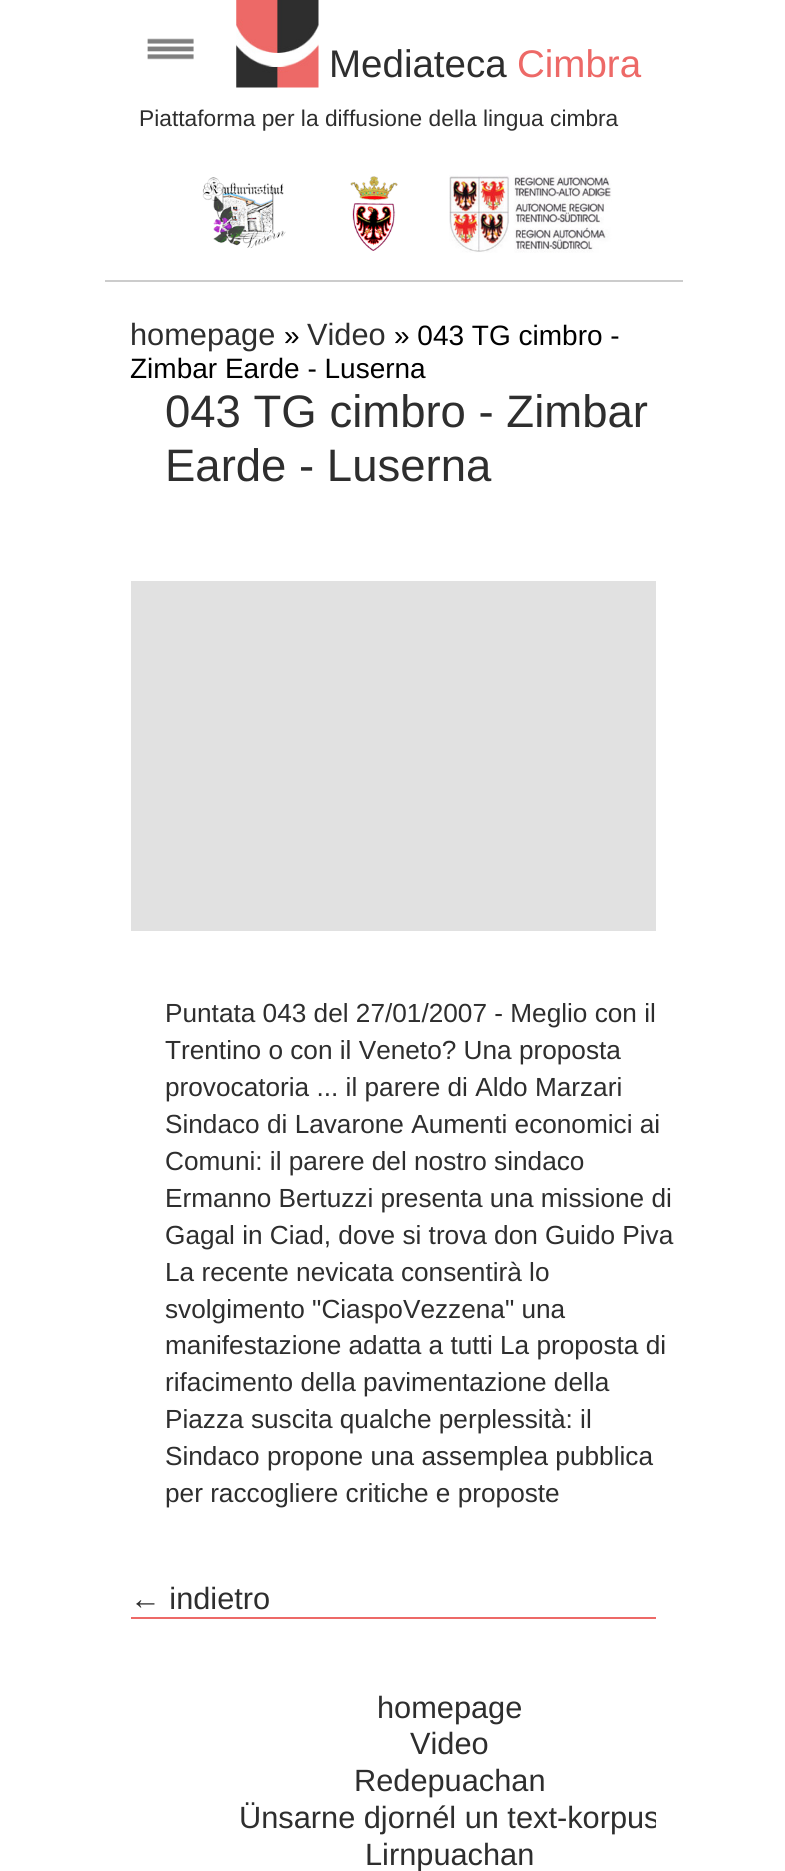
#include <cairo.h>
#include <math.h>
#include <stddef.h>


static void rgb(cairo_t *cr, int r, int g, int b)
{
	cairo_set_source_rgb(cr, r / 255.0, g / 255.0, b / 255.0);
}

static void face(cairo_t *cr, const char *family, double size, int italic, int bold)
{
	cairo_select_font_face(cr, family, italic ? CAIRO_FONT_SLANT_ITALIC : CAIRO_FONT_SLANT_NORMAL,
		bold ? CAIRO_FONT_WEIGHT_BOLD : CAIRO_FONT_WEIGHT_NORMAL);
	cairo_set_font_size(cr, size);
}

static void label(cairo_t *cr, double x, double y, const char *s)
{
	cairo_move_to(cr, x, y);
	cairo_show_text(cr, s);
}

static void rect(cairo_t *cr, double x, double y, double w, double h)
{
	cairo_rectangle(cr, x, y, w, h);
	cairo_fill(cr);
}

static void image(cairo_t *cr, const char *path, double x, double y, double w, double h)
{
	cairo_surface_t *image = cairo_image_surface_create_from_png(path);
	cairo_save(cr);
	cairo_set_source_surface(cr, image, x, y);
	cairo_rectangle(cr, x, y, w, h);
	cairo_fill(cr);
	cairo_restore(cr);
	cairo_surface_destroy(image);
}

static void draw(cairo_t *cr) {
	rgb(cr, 255, 255, 255);
	cairo_paint(cr);
	rgb(cr, 204, 204, 204);
	rect(cr, 105, 280, 578, 2);
	image(cr, "image0.png", 147, 38, 47, 22);
	image(cr, "image1.png", 236, 0, 83, 88);
	face(cr, "Liberation Sans", 38.5, 0, 0);
	rgb(cr, 46, 46, 46);
	label(cr, 329, 77, "Mediateca");
	rgb(cr, 237, 105, 103);
	label(cr, 517, 77, "Cimbra");
	face(cr, "Liberation Sans", 22.75, 0, 0);
	rgb(cr, 46, 46, 46);
	label(cr, 139, 126, "Piattaforma per la diffusione della lingua cimbra");
	image(cr, "image2.png", 202, 177, 84, 71);
	image(cr, "image3.png", 350, 176, 48, 75);
	image(cr, "image4.png", 449, 175, 163, 78);
	face(cr, "Liberation Sans", 30.75, 0, 0);
	label(cr, 130, 345, "homepage");
	face(cr, "Liberation Sans", 28, 0, 0);
	rgb(cr, 0, 0, 0);
	label(cr, 284, 345, "»");
	face(cr, "Liberation Sans", 30.75, 0, 0);
	rgb(cr, 46, 46, 46);
	label(cr, 307, 345, "Video");
	face(cr, "Liberation Sans", 28, 0, 0);
	rgb(cr, 0, 0, 0);
	label(cr, 394, 345, "» 043 TG cimbro -");
	label(cr, 130, 378, "Zimbar Earde - Luserna");
	face(cr, "Liberation Sans", 45.5, 0, 0);
	rgb(cr, 46, 46, 46);
	label(cr, 165, 427, "043 TG cimbro - Zimbar");
	label(cr, 165, 481, "Earde - Luserna");
	rgb(cr, 225, 225, 225);
	rect(cr, 131, 581, 525, 350);
	face(cr, "Liberation Sans", 26.2, 0, 0);
	rgb(cr, 46, 46, 46);
	label(cr, 165, 1022, "Puntata 043 del 27/01/2007 - Meglio con il");
	label(cr, 165, 1059, "Trentino o con il Veneto? Una proposta");
	label(cr, 165, 1096, "provocatoria ... il parere di Aldo Marzari");
	label(cr, 165, 1133, "Sindaco di Lavarone Aumenti economici ai");
	label(cr, 165, 1170, "Comuni: il parere del nostro sindaco");
	label(cr, 165, 1207, "Ermanno Bertuzzi presenta una missione di");
	label(cr, 165, 1244, "Gagal in Ciad, dove si trova don Guido Piva");
	label(cr, 165, 1281, "La recente nevicata consentirà lo");
	label(cr, 165, 1318, "svolgimento \"CiaspoVezzena\" una");
	label(cr, 165, 1354, "manifestazione adatta a tutti La proposta di");
	label(cr, 165, 1391, "rifacimento della pavimentazione della");
	label(cr, 165, 1428, "Piazza suscita qualche perplessità: il");
	label(cr, 165, 1465, "Sindaco propone una assemplea pubblica");
	label(cr, 165, 1502, "per raccogliere critiche e proposte");
	face(cr, "Liberation Sans", 30.75, 0, 0);
	label(cr, 130, 1609, "← indietro");
	rgb(cr, 237, 105, 103);
	rect(cr, 131, 1617, 525, 2);
	rgb(cr, 46, 46, 46);
	label(cr, 377, 1718, "homepage");
	label(cr, 410, 1754, "Video");
	label(cr, 354, 1791, "Redepuachan");
	cairo_save(cr);
	cairo_rectangle(cr, 131, 1619, 525, 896);
	cairo_clip(cr);
	label(cr, 239, 1828, "Ünsarne djornél un text-korpus");
	cairo_restore(cr);
	label(cr, 365, 1865, "Lirnpuachan");
}

int main(void) {
	cairo_surface_t *surface = cairo_image_surface_create(CAIRO_FORMAT_RGB24, 785, 1871);
	cairo_t *cr = cairo_create(surface);
	cairo_font_options_t *options = cairo_font_options_create();
	cairo_font_options_set_hint_metrics(options, CAIRO_HINT_METRICS_OFF);
	cairo_font_options_set_hint_style(options, CAIRO_HINT_STYLE_NONE);
	cairo_set_font_options(cr, options);
	cairo_set_miter_limit(cr, 4);
	draw(cr);
	cairo_surface_write_to_png(surface, "render.png");
	cairo_font_options_destroy(options);
	cairo_destroy(cr);
	cairo_surface_destroy(surface);
	return 0;
}
